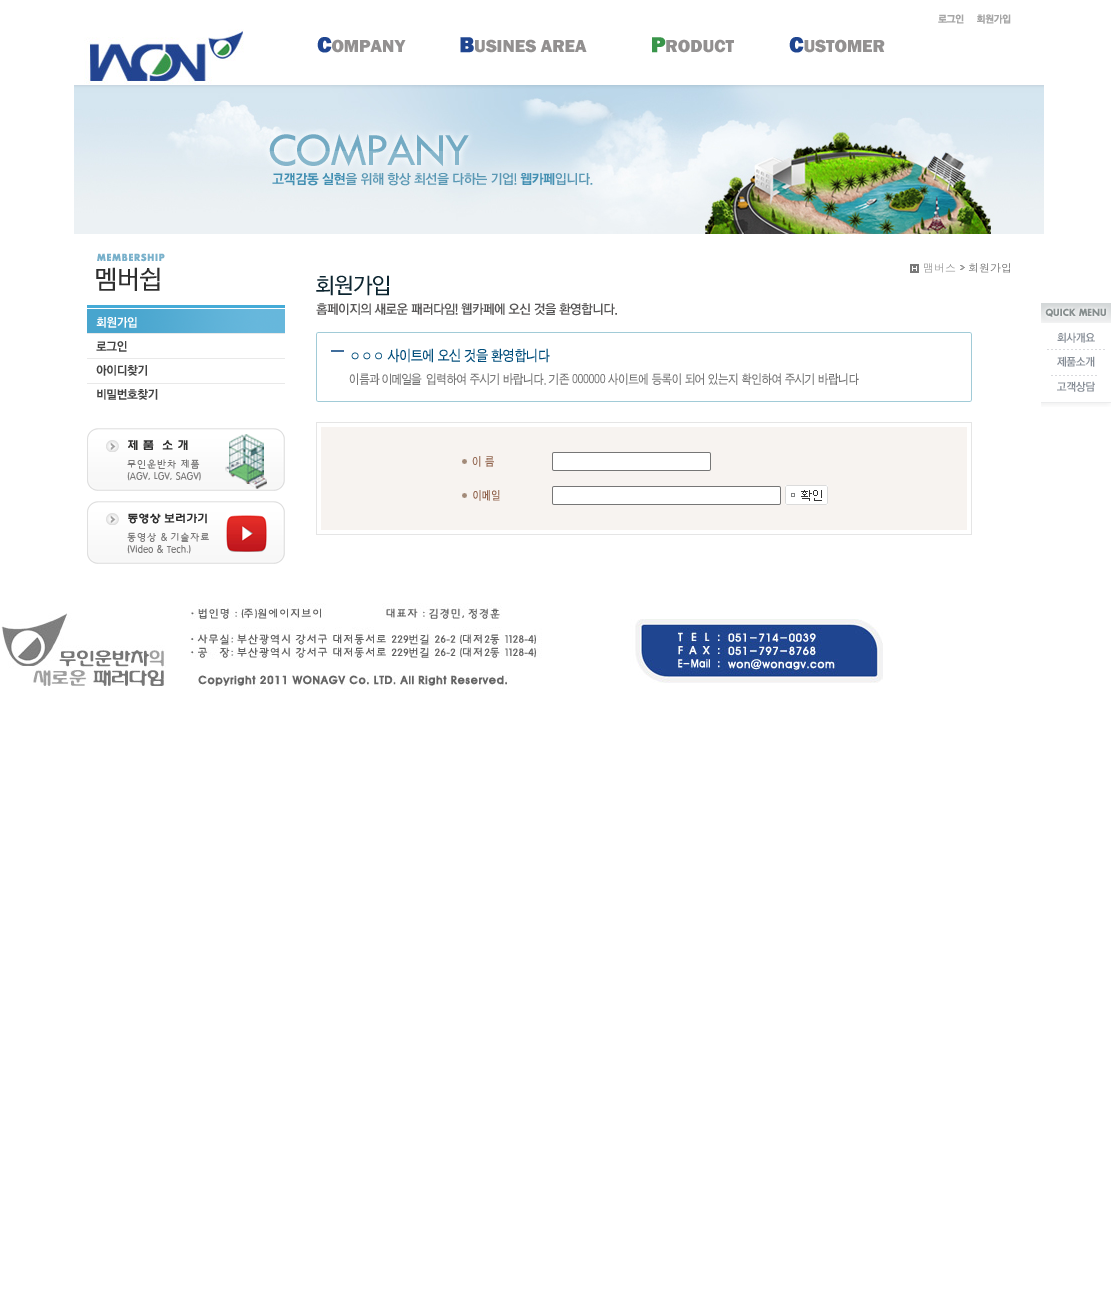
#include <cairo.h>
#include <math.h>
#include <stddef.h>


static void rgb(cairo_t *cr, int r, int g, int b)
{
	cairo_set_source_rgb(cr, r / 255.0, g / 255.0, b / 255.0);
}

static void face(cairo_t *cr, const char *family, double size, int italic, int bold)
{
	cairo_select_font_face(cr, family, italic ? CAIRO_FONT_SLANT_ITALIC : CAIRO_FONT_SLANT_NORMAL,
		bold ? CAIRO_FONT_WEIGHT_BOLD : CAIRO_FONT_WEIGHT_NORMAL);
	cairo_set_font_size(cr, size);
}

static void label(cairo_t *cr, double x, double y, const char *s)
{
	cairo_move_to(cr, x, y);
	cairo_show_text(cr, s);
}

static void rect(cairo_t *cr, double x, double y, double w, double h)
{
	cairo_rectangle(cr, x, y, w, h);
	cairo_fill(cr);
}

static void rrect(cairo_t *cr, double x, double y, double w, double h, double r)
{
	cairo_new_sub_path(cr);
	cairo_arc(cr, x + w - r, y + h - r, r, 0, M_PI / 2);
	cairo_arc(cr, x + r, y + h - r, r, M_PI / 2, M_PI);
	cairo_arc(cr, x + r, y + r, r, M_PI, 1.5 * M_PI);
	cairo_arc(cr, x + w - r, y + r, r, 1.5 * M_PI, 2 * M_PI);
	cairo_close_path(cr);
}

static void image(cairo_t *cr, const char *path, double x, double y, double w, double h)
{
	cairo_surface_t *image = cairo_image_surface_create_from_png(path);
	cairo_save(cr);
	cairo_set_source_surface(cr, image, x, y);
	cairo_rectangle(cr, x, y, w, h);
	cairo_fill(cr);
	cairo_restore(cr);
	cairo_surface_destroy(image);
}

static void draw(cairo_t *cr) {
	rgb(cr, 255, 255, 255);
	cairo_paint(cr);
	image(cr, "image0.png", 938, 14, 26, 10);
	image(cr, "image1.png", 977, 14, 34, 10);
	image(cr, "image2.png", 84, 29, 160, 55);
	image(cr, "image3.png", 317, 37, 89, 16);
	image(cr, "image4.png", 460, 37, 127, 16);
	image(cr, "image5.png", 652, 37, 82, 16);
	image(cr, "image6.png", 789, 37, 96, 16);
	image(cr, "image7.png", 74, 85, 970, 149);
	rgb(cr, 69, 171, 215);
	rect(cr, 87, 305, 198, 3);
	image(cr, "image8.png", 96, 253, 69, 38);
	image(cr, "image9.png", 87, 309, 198, 24);
	image(cr, "image10.png", 87, 333, 198, 19);
	image(cr, "image11.png", 87, 358, 198, 18);
	image(cr, "image12.png", 87, 383, 198, 17);
	image(cr, "image13.png", 87, 428, 198, 63);
	image(cr, "image14.png", 87, 501, 198, 63);
	image(cr, "image15.png", 910, 264, 9, 9);
	face(cr, "Dotum", 11, 0, 0);
	rgb(cr, 153, 153, 153);
	label(cr, 923, 272, "맴버스");
	image(cr, "image16.png", 960, 265, 5, 5);
	rgb(cr, 102, 102, 102);
	label(cr, 968, 272, "회원가입");
	image(cr, "image17.png", 316, 275, 301, 41);
	image(cr, "image18.png", 316, 332, 656, 70);
	cairo_rectangle(cr, 316.5, 422.5, 655, 112);
	rgb(cr, 229, 229, 229);
	cairo_set_line_width(cr, 1);
	cairo_stroke(cr);
	rgb(cr, 247, 243, 240);
	rect(cr, 321, 427, 646, 103);
	image(cr, "image19.png", 462, 456, 32, 11);
	rgb(cr, 255, 255, 255);
	rrect(cr, 552.5, 452.5, 158, 18, 1.5);
	cairo_fill_preserve(cr);
	rgb(cr, 118, 118, 118);
	cairo_stroke(cr);
	image(cr, "image20.png", 462, 490, 38, 11);
	rgb(cr, 255, 255, 255);
	rrect(cr, 552.5, 486.5, 228, 18, 1.5);
	cairo_fill_preserve(cr);
	rgb(cr, 118, 118, 118);
	cairo_stroke(cr);
	image(cr, "image21.png", 785, 485, 43, 20);
	image(cr, "image22.png", 1041, 402, 70, 5);
	image(cr, "image23.png", 1041, 303, 70, 20);
	image(cr, "image24.png", 1047, 332, 58, 18);
	image(cr, "image25.png", 1051, 356, 46, 20);
	image(cr, "image26.png", 1057, 381, 38, 11);
	image(cr, "image27.png", 1, 613, 165, 73);
	image(cr, "image28.png", 190, 603, 693, 86);
}

int main(void) {
	cairo_surface_t *surface = cairo_image_surface_create(CAIRO_FORMAT_RGB24, 1117, 1301);
	cairo_t *cr = cairo_create(surface);
	cairo_font_options_t *options = cairo_font_options_create();
	cairo_font_options_set_hint_metrics(options, CAIRO_HINT_METRICS_OFF);
	cairo_font_options_set_hint_style(options, CAIRO_HINT_STYLE_NONE);
	cairo_set_font_options(cr, options);
	cairo_set_miter_limit(cr, 4);
	draw(cr);
	cairo_surface_write_to_png(surface, "render.png");
	cairo_font_options_destroy(options);
	cairo_destroy(cr);
	cairo_surface_destroy(surface);
	return 0;
}
